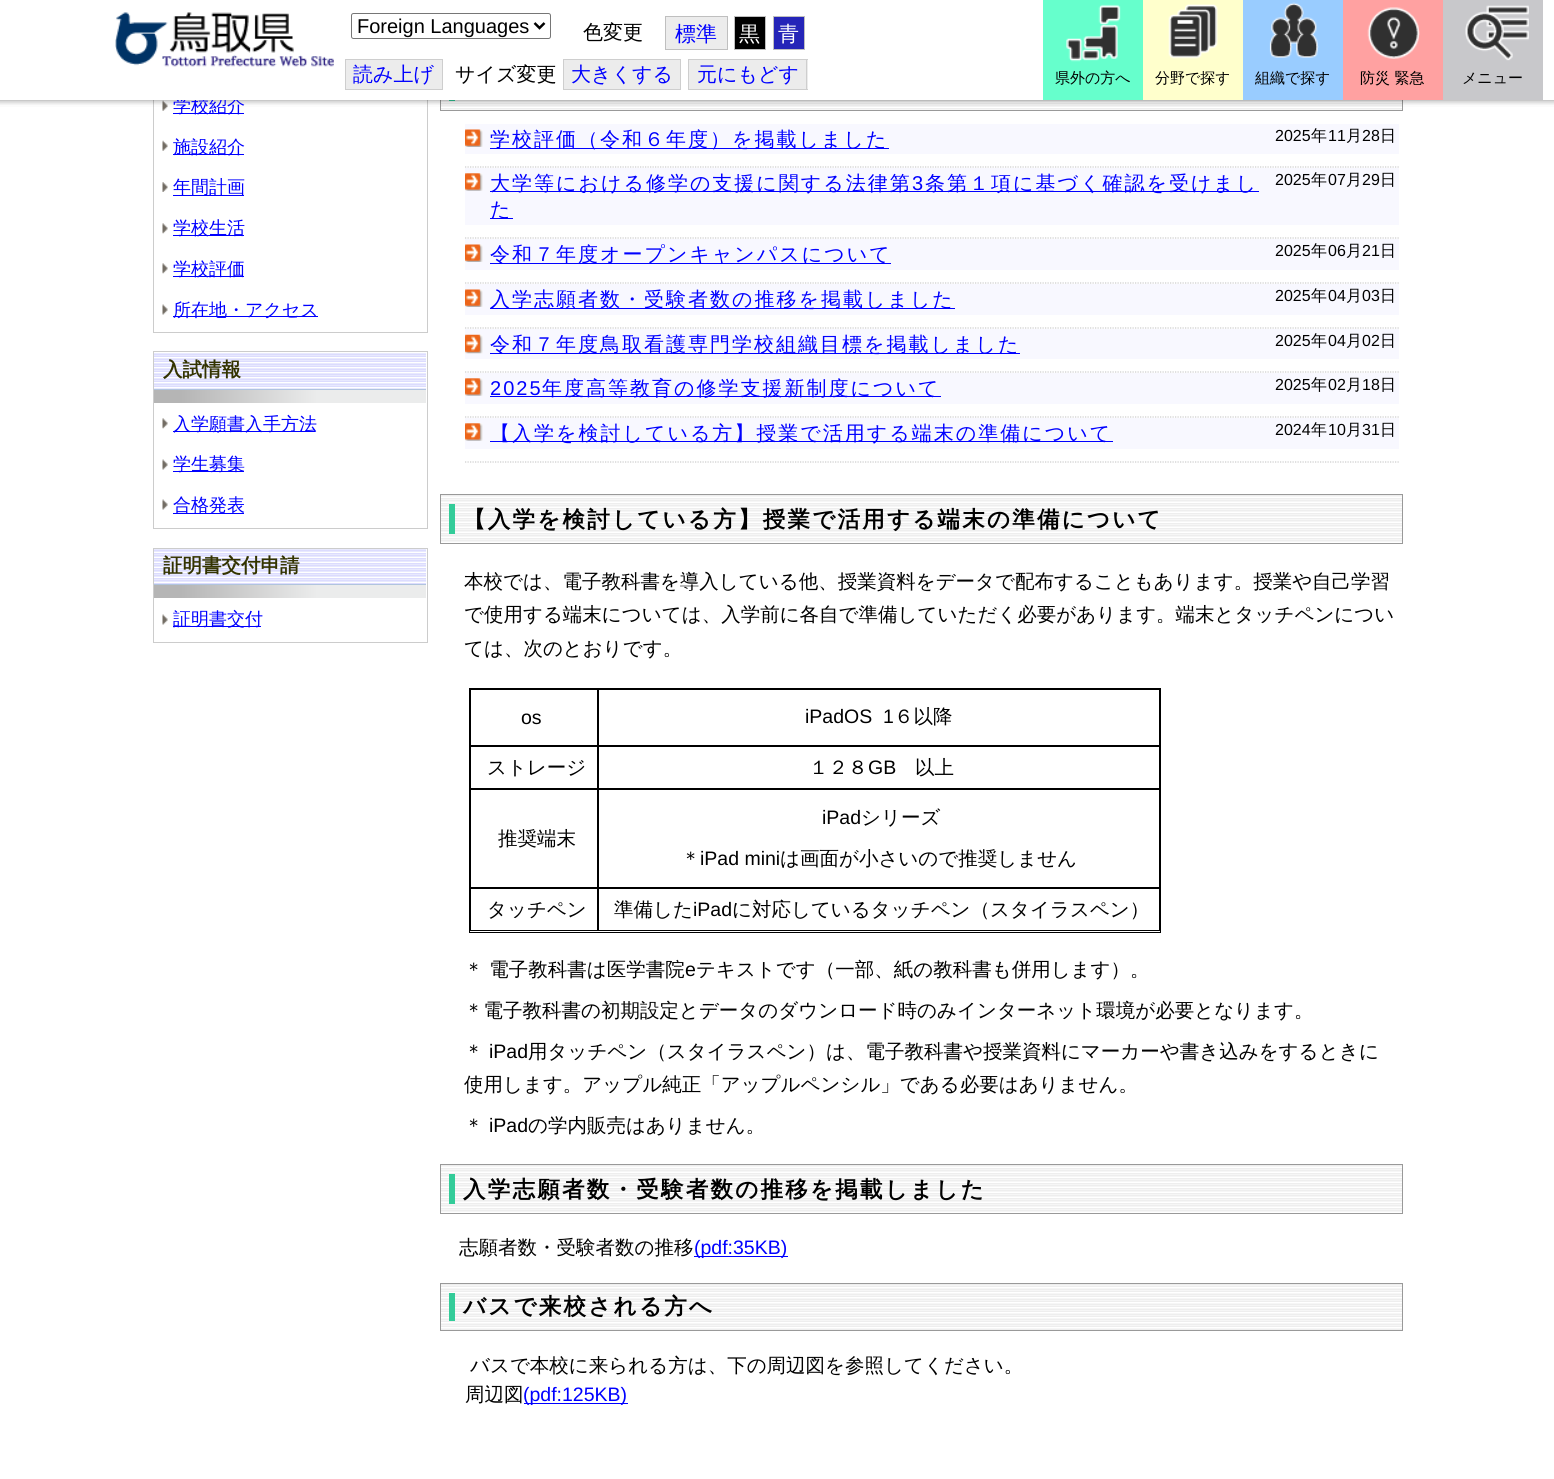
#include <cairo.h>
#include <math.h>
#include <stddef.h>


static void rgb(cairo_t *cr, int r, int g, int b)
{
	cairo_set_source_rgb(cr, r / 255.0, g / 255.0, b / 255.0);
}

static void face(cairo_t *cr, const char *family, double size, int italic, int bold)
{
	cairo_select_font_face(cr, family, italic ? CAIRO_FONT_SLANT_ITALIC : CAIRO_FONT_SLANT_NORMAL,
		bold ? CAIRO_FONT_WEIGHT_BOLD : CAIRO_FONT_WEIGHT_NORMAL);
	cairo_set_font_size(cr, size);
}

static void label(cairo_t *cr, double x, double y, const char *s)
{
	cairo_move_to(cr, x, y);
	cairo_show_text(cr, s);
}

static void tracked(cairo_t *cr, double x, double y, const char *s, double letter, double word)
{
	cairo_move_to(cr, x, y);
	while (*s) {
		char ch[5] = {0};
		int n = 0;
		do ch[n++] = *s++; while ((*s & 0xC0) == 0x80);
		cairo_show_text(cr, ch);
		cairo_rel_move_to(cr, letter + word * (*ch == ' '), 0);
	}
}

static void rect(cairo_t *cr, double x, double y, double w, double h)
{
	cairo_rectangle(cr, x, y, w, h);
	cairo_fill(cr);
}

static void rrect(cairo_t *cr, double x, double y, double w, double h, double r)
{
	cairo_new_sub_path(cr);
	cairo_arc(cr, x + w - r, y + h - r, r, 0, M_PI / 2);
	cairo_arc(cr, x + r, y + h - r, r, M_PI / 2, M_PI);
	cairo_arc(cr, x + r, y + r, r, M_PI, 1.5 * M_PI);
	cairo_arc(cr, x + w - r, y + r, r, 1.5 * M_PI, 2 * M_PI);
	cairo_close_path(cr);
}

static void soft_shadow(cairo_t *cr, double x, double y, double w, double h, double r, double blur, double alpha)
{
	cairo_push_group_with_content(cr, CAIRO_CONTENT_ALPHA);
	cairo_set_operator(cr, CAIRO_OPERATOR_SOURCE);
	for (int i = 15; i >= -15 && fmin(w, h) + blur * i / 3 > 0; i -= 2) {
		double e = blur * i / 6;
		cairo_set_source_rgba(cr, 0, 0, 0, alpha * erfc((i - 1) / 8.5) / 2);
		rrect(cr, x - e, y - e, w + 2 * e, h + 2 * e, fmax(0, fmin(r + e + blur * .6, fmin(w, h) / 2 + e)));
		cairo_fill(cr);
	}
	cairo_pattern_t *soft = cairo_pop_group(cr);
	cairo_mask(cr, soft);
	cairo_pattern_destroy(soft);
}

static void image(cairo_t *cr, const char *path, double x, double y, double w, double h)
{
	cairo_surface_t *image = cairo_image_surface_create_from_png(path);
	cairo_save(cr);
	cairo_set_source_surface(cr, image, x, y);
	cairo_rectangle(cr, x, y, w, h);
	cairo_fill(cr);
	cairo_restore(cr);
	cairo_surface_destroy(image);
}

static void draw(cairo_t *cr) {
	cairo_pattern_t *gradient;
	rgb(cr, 255, 255, 255);
	cairo_paint(cr);
	cairo_rectangle(cr, 153.5, -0.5, 274, 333);
	rgb(cr, 204, 204, 204);
	cairo_set_line_width(cr, 1);
	cairo_stroke(cr);
	image(cr, "image6.png", 162, 100, 6, 11);
	image(cr, "image12.png", 441, 100, 961, 10);
	cairo_rectangle(cr, 440.5, 61.5, 962, 49);
	rgb(cr, 153, 153, 153);
	cairo_stroke(cr);
	rgb(cr, 51, 204, 153);
	rect(cr, 449, 100, 6, 1);
	rgb(cr, 0, 0, 0);
	soft_shadow(cr, -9, 1, 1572, 100, 0, 3, 0.1);
	soft_shadow(cr, -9, 1, 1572, 100, 0, 3, 0.1);
	soft_shadow(cr, -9, 1, 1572, 100, 0, 3, 0.1);
	soft_shadow(cr, -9, 1, 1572, 100, 0, 3, 0.1);
	rgb(cr, 0, 0, 255);
	rect(cr, 173, 113, 71, 1);
	face(cr, "WenQuanYi Zen Hei Medium", 18, 0, 0);
	label(cr, 173, 112, "学校紹介");
	rgb(cr, 255, 255, 255);
	rect(cr, 0, 0, 1554, 100);
	image(cr, "image0.png", 115, 12, 219, 55);
	rrect(cr, 351.5, 13.5, 199, 25, 2);
	rgb(cr, 118, 118, 118);
	cairo_stroke(cr);
	cairo_new_path(cr);
	cairo_move_to(cr, 534.5, 23);
	cairo_line_to(cr, 539.5, 28);
	cairo_line_to(cr, 544.5, 23);
	rgb(cr, 0, 0, 0);
	cairo_set_line_width(cr, 2.5);
	cairo_stroke(cr);
	face(cr, "Liberation Sans", 20, 0, 0);
	label(cr, 357, 33, "Foreign Languages");
	face(cr, "WenQuanYi Zen Hei Medium", 20, 0, 0);
	label(cr, 583, 39, "色変更");
	rgb(cr, 236, 236, 236);
	cairo_rectangle(cr, 665.5, 16.5, 62, 33);
	cairo_fill_preserve(cr);
	rgb(cr, 191, 191, 191);
	cairo_set_line_width(cr, 1);
	cairo_stroke(cr);
	face(cr, "WenQuanYi Zen Hei Medium", 21, 0, 0);
	rgb(cr, 0, 0, 255);
	label(cr, 675, 41, "標準");
	rgb(cr, 0, 0, 0);
	cairo_rectangle(cr, 734.5, 16.5, 31, 33);
	cairo_fill_preserve(cr);
	rgb(cr, 191, 191, 191);
	cairo_stroke(cr);
	rgb(cr, 255, 255, 255);
	label(cr, 739, 41, "黒");
	rgb(cr, 37, 37, 184);
	cairo_rectangle(cr, 773.5, 16.5, 31, 33);
	cairo_fill_preserve(cr);
	rgb(cr, 191, 191, 191);
	cairo_stroke(cr);
	rgb(cr, 255, 255, 255);
	label(cr, 778, 41, "青");
	rgb(cr, 236, 236, 236);
	cairo_rectangle(cr, 345.5, 59.5, 97, 30);
	cairo_fill_preserve(cr);
	rgb(cr, 206, 206, 206);
	cairo_stroke(cr);
	face(cr, "WenQuanYi Zen Hei Medium", 20, 0, 0);
	rgb(cr, 0, 0, 255);
	label(cr, 353, 81, "読み上げ");
	rgb(cr, 0, 0, 0);
	label(cr, 455, 81, "サイズ変更");
	rgb(cr, 236, 236, 236);
	rect(cr, 564, 60, 116, 29);
	rgb(cr, 0, 0, 255);
	label(cr, 571, 81, "大きくする");
	rgb(cr, 206, 206, 206);
	rect(cr, 563, 59, 118, 1);
	rect(cr, 563, 89, 28, 1);
	rect(cr, 563, 59, 1, 31);
	rect(cr, 680, 59, 1, 31);
	rect(cr, 591, 89, 90, 1);
	rgb(cr, 236, 236, 236);
	rect(cr, 689, 60, 119, 29);
	rgb(cr, 0, 0, 255);
	label(cr, 697, 81, "元にもどす");
	rgb(cr, 206, 206, 206);
	rect(cr, 688, 59, 120, 1);
	rect(cr, 688, 89, 28, 1);
	rect(cr, 688, 59, 1, 31);
	rect(cr, 806, 59, 1, 31);
	rect(cr, 716, 89, 92, 1);
	rgb(cr, 102, 255, 204);
	rect(cr, 1043, 0, 100, 100);
	image(cr, "image1.png", 1066, 4, 55, 58);
	face(cr, "WenQuanYi Zen Hei Medium", 15, 0, 0);
	rgb(cr, 0, 0, 0);
	label(cr, 1055, 83, "県外の方へ");
	rgb(cr, 255, 255, 204);
	rect(cr, 1143, 0, 100, 100);
	image(cr, "image2.png", 1168, 4, 50, 55);
	rgb(cr, 0, 0, 0);
	label(cr, 1155, 83, "分野で探す");
	rgb(cr, 153, 204, 255);
	rect(cr, 1243, 0, 100, 100);
	image(cr, "image3.png", 1269, 2, 50, 56);
	rgb(cr, 0, 0, 0);
	label(cr, 1255, 83, "組織で探す");
	rgb(cr, 255, 161, 161);
	rect(cr, 1343, 0, 100, 100);
	image(cr, "image4.png", 1367, 7, 53, 52);
	rgb(cr, 0, 0, 0);
	label(cr, 1360, 83, "防災 緊急");
	rgb(cr, 200, 200, 203);
	rect(cr, 1443, 0, 100, 100);
	image(cr, "image5.png", 1465, 5, 64, 56);
	rgb(cr, 0, 0, 0);
	label(cr, 1462, 83, "メニュー");
	image(cr, "image6.png", 162, 140, 6, 11);
	rgb(cr, 0, 0, 255);
	rect(cr, 173, 154, 71, 1);
	face(cr, "WenQuanYi Zen Hei Medium", 18, 0, 0);
	label(cr, 173, 153, "施設紹介");
	image(cr, "image7.png", 162, 182, 6, 10);
	rect(cr, 173, 195, 71, 1);
	label(cr, 173, 193, "年間計画");
	image(cr, "image8.png", 162, 223, 6, 11);
	rect(cr, 173, 235, 71, 1);
	label(cr, 173, 234, "学校生活");
	image(cr, "image8.png", 162, 263, 6, 11);
	rect(cr, 173, 276, 71, 1);
	label(cr, 173, 275, "学校評価");
	image(cr, "image9.png", 162, 304, 6, 11);
	rect(cr, 173, 316, 145, 1);
	label(cr, 173, 316, "所在地・アクセス");
	cairo_rectangle(cr, 153.5, 351.5, 274, 177);
	rgb(cr, 204, 204, 204);
	cairo_stroke(cr);
	image(cr, "image10.png", 154, 353, 272, 36);
	rgb(cr, 176, 196, 222);
	rect(cr, 154, 389, 272, 1);
	face(cr, "WenQuanYi Zen Hei", 19.5, 0, 1);
	rgb(cr, 51, 51, 0);
	label(cr, 163, 376, "入試情報");
	gradient = cairo_pattern_create_linear(154, 396, 426, 396);
	cairo_pattern_add_color_stop_rgba(gradient, 0, 0.71, 0.71, 0.71, 1);
	cairo_pattern_add_color_stop_rgba(gradient, 0.1, 0.71, 0.71, 0.71, 1);
	cairo_pattern_add_color_stop_rgba(gradient, 0.6, 0.922, 0.925, 0.925, 1);
	cairo_pattern_add_color_stop_rgba(gradient, 1, 0.922, 0.925, 0.925, 1);
	cairo_set_source(cr, gradient);
	cairo_pattern_destroy(gradient);
	rect(cr, 154, 390, 272, 13);
	image(cr, "image8.png", 162, 418, 6, 11);
	rgb(cr, 0, 0, 255);
	rect(cr, 173, 431, 142, 1);
	face(cr, "WenQuanYi Zen Hei Medium", 18, 0, 0);
	label(cr, 173, 430, "入学願書入手方法");
	image(cr, "image9.png", 162, 459, 6, 11);
	rect(cr, 173, 471, 71, 1);
	label(cr, 173, 470, "学生募集");
	image(cr, "image9.png", 162, 499, 6, 11);
	rect(cr, 173, 513, 71, 1);
	label(cr, 173, 511, "合格発表");
	cairo_rectangle(cr, 153.5, 548.5, 274, 94);
	rgb(cr, 204, 204, 204);
	cairo_stroke(cr);
	image(cr, "image11.png", 154, 549, 272, 35);
	rgb(cr, 176, 196, 222);
	rect(cr, 154, 584, 272, 1);
	face(cr, "WenQuanYi Zen Hei", 19.5, 0, 1);
	rgb(cr, 51, 51, 0);
	label(cr, 163, 572, "証明書交付申請");
	gradient = cairo_pattern_create_linear(154, 591, 426, 591);
	cairo_pattern_add_color_stop_rgba(gradient, 0, 0.71, 0.71, 0.71, 1);
	cairo_pattern_add_color_stop_rgba(gradient, 0.1, 0.71, 0.71, 0.71, 1);
	cairo_pattern_add_color_stop_rgba(gradient, 0.6, 0.922, 0.925, 0.925, 1);
	cairo_pattern_add_color_stop_rgba(gradient, 1, 0.922, 0.925, 0.925, 1);
	cairo_set_source(cr, gradient);
	cairo_pattern_destroy(gradient);
	rect(cr, 154, 585, 272, 13);
	image(cr, "image9.png", 162, 614, 6, 11);
	rgb(cr, 0, 0, 255);
	rect(cr, 173, 626, 88, 1);
	face(cr, "WenQuanYi Zen Hei Medium", 18, 0, 0);
	label(cr, 173, 625, "証明書交付");
	rgb(cr, 248, 248, 255);
	rect(cr, 465, 124, 934, 30);
	image(cr, "image13.png", 465, 129, 18, 18);
	rgb(cr, 0, 0, 255);
	rect(cr, 490, 148, 399, 1);
	face(cr, "WenQuanYi Zen Hei Medium", 20, 0, 0);
	tracked(cr, 490, 146, "学校評価（令和６年度）を掲載しました", 2, 0);
	face(cr, "Liberation Sans", 16, 0, 0);
	rgb(cr, 0, 0, 0);
	label(cr, 1275, 141, "2025");
	face(cr, "WenQuanYi Zen Hei Medium", 16, 0, 0);
	label(cr, 1311, 141, "年");
	face(cr, "Liberation Sans", 16, 0, 0);
	label(cr, 1328, 141, "11");
	face(cr, "WenQuanYi Zen Hei Medium", 16, 0, 0);
	label(cr, 1346, 141, "月");
	face(cr, "Liberation Sans", 16, 0, 0);
	label(cr, 1362, 141, "28");
	face(cr, "WenQuanYi Zen Hei Medium", 16, 0, 0);
	label(cr, 1380, 141, "日");
	cairo_new_path(cr);
	cairo_move_to(cr, 465, 167);
	cairo_line_to(cr, 1399, 167);
	rgb(cr, 204, 204, 204);
	cairo_set_line_width(cr, 1.2);
	cairo_set_dash(cr, (double[]){1.25, 1.25}, 2, 0);
	cairo_stroke(cr);
	rgb(cr, 248, 248, 255);
	rect(cr, 465, 168, 934, 57);
	image(cr, "image14.png", 465, 173, 18, 18);
	rgb(cr, 0, 0, 255);
	rect(cr, 490, 191, 769, 1);
	face(cr, "WenQuanYi Zen Hei Medium", 20, 0, 0);
	tracked(cr, 490, 190, "大学等における修学の支援に関する法律第", 2, 0);
	face(cr, "Liberation Sans", 20, 0, 0);
	tracked(cr, 912, 190, "3", 2, 0);
	face(cr, "WenQuanYi Zen Hei Medium", 20, 0, 0);
	tracked(cr, 925, 190, "条第１項に基づく確認を受けまし", 2, 0);
	rect(cr, 490, 218, 23, 1);
	tracked(cr, 490, 216, "た", 2, 0);
	face(cr, "Liberation Sans", 16, 0, 0);
	rgb(cr, 0, 0, 0);
	label(cr, 1275, 185, "2025");
	face(cr, "WenQuanYi Zen Hei Medium", 16, 0, 0);
	label(cr, 1311, 185, "年");
	face(cr, "Liberation Sans", 16, 0, 0);
	label(cr, 1328, 185, "07");
	face(cr, "WenQuanYi Zen Hei Medium", 16, 0, 0);
	label(cr, 1346, 185, "月");
	face(cr, "Liberation Sans", 16, 0, 0);
	label(cr, 1362, 185, "29");
	face(cr, "WenQuanYi Zen Hei Medium", 16, 0, 0);
	label(cr, 1380, 185, "日");
	cairo_new_path(cr);
	cairo_move_to(cr, 465, 238);
	cairo_line_to(cr, 1399, 238);
	rgb(cr, 204, 204, 204);
	cairo_stroke(cr);
	rgb(cr, 248, 248, 255);
	rect(cr, 465, 239, 934, 31);
	image(cr, "image13.png", 465, 244, 18, 18);
	rgb(cr, 0, 0, 255);
	rect(cr, 490, 263, 401, 1);
	face(cr, "WenQuanYi Zen Hei Medium", 20, 0, 0);
	tracked(cr, 490, 261, "令和７年度オープンキャンパスについて", 2, 0);
	face(cr, "Liberation Sans", 16, 0, 0);
	rgb(cr, 0, 0, 0);
	label(cr, 1275, 256, "2025");
	face(cr, "WenQuanYi Zen Hei Medium", 16, 0, 0);
	label(cr, 1311, 256, "年");
	face(cr, "Liberation Sans", 16, 0, 0);
	label(cr, 1328, 256, "06");
	face(cr, "WenQuanYi Zen Hei Medium", 16, 0, 0);
	label(cr, 1346, 256, "月");
	face(cr, "Liberation Sans", 16, 0, 0);
	label(cr, 1362, 256, "21");
	face(cr, "WenQuanYi Zen Hei Medium", 16, 0, 0);
	label(cr, 1380, 256, "日");
	cairo_new_path(cr);
	cairo_move_to(cr, 465, 283);
	cairo_line_to(cr, 1399, 283);
	rgb(cr, 204, 204, 204);
	cairo_stroke(cr);
	rgb(cr, 248, 248, 255);
	rect(cr, 465, 284, 934, 31);
	image(cr, "image13.png", 465, 289, 18, 18);
	rgb(cr, 0, 0, 255);
	rect(cr, 490, 308, 465, 1);
	face(cr, "WenQuanYi Zen Hei Medium", 20, 0, 0);
	tracked(cr, 490, 306, "入学志願者数・受験者数の推移を掲載しました", 2, 0);
	face(cr, "Liberation Sans", 16, 0, 0);
	rgb(cr, 0, 0, 0);
	label(cr, 1275, 301, "2025");
	face(cr, "WenQuanYi Zen Hei Medium", 16, 0, 0);
	label(cr, 1311, 301, "年");
	face(cr, "Liberation Sans", 16, 0, 0);
	label(cr, 1328, 301, "04");
	face(cr, "WenQuanYi Zen Hei Medium", 16, 0, 0);
	label(cr, 1346, 301, "月");
	face(cr, "Liberation Sans", 16, 0, 0);
	label(cr, 1362, 301, "03");
	face(cr, "WenQuanYi Zen Hei Medium", 16, 0, 0);
	label(cr, 1380, 301, "日");
	cairo_new_path(cr);
	cairo_move_to(cr, 465, 328);
	cairo_line_to(cr, 1399, 328);
	rgb(cr, 204, 204, 204);
	cairo_stroke(cr);
	rgb(cr, 248, 248, 255);
	rect(cr, 465, 329, 934, 30);
	image(cr, "image15.png", 465, 334, 18, 20);
	rgb(cr, 0, 0, 255);
	rect(cr, 490, 353, 530, 1);
	face(cr, "WenQuanYi Zen Hei Medium", 20, 0, 0);
	tracked(cr, 490, 351, "令和７年度鳥取看護専門学校組織目標を掲載しました", 2, 0);
	face(cr, "Liberation Sans", 16, 0, 0);
	rgb(cr, 0, 0, 0);
	label(cr, 1275, 346, "2025");
	face(cr, "WenQuanYi Zen Hei Medium", 16, 0, 0);
	label(cr, 1311, 346, "年");
	face(cr, "Liberation Sans", 16, 0, 0);
	label(cr, 1328, 346, "04");
	face(cr, "WenQuanYi Zen Hei Medium", 16, 0, 0);
	label(cr, 1346, 346, "月");
	face(cr, "Liberation Sans", 16, 0, 0);
	label(cr, 1362, 346, "02");
	face(cr, "WenQuanYi Zen Hei Medium", 16, 0, 0);
	label(cr, 1380, 346, "日");
	cairo_new_path(cr);
	cairo_move_to(cr, 465, 372);
	cairo_line_to(cr, 1399, 372);
	rgb(cr, 204, 204, 204);
	cairo_stroke(cr);
	rgb(cr, 248, 248, 255);
	rect(cr, 465, 373, 934, 31);
	image(cr, "image16.png", 465, 378, 18, 18);
	face(cr, "Liberation Sans", 20, 0, 0);
	rgb(cr, 0, 0, 255);
	tracked(cr, 490, 395, "2025", 2, 0);
	rect(cr, 490, 396, 451, 1);
	face(cr, "WenQuanYi Zen Hei Medium", 20, 0, 0);
	tracked(cr, 542, 395, "年度高等教育の修学支援新制度について", 2, 0);
	face(cr, "Liberation Sans", 16, 0, 0);
	rgb(cr, 0, 0, 0);
	label(cr, 1275, 390, "2025");
	face(cr, "WenQuanYi Zen Hei Medium", 16, 0, 0);
	label(cr, 1311, 390, "年");
	face(cr, "Liberation Sans", 16, 0, 0);
	label(cr, 1328, 390, "02");
	face(cr, "WenQuanYi Zen Hei Medium", 16, 0, 0);
	label(cr, 1346, 390, "月");
	face(cr, "Liberation Sans", 16, 0, 0);
	label(cr, 1362, 390, "18");
	face(cr, "WenQuanYi Zen Hei Medium", 16, 0, 0);
	label(cr, 1380, 390, "日");
	cairo_new_path(cr);
	cairo_move_to(cr, 465, 417);
	cairo_line_to(cr, 1399, 417);
	rgb(cr, 204, 204, 204);
	cairo_stroke(cr);
	rgb(cr, 248, 248, 255);
	rect(cr, 465, 418, 934, 31);
	image(cr, "image16.png", 465, 423, 18, 18);
	rgb(cr, 0, 0, 255);
	rect(cr, 490, 441, 623, 1);
	face(cr, "WenQuanYi Zen Hei Medium", 20, 0, 0);
	tracked(cr, 490, 440, "【入学を検討している方】授業で活用する端末の準備について", 2, 0);
	face(cr, "Liberation Sans", 16, 0, 0);
	rgb(cr, 0, 0, 0);
	label(cr, 1275, 435, "2024");
	face(cr, "WenQuanYi Zen Hei Medium", 16, 0, 0);
	label(cr, 1311, 435, "年");
	face(cr, "Liberation Sans", 16, 0, 0);
	label(cr, 1328, 435, "10");
	face(cr, "WenQuanYi Zen Hei Medium", 16, 0, 0);
	label(cr, 1346, 435, "月");
	face(cr, "Liberation Sans", 16, 0, 0);
	label(cr, 1362, 435, "31");
	face(cr, "WenQuanYi Zen Hei Medium", 16, 0, 0);
	label(cr, 1380, 435, "日");
	cairo_new_path(cr);
	cairo_move_to(cr, 465, 462);
	cairo_line_to(cr, 1399, 462);
	rgb(cr, 204, 204, 204);
	cairo_stroke(cr);
	image(cr, "image17.png", 441, 495, 961, 47);
	cairo_rectangle(cr, 440.5, 494.5, 962, 49);
	rgb(cr, 153, 153, 153);
	cairo_set_line_width(cr, 1);
	cairo_set_dash(cr, NULL, 0, 0);
	cairo_stroke(cr);
	rgb(cr, 51, 204, 153);
	rect(cr, 449, 504, 6, 30);
	face(cr, "WenQuanYi Zen Hei", 22.5, 0, 1);
	rgb(cr, 0, 0, 0);
	tracked(cr, 463, 527, "【入学を検討している方】授業で活用する端末の準備について", 2.25, 0);
	face(cr, "WenQuanYi Zen Hei Medium", 19.5, 0, 0);
	label(cr, 464, 588, "本校では、電子教科書を導入している他、授業資料をデータで配布することもあります。授業や自己学習");
	label(cr, 464, 621, "で使用する端末については、入学前に各自で準備していただく必要があります。端末とタッチペンについ");
	label(cr, 464, 655, "ては、次のとおりです。");
	cairo_rectangle(cr, 469.5, 688.5, 691, 244);
	cairo_stroke(cr);
	cairo_rectangle(cr, 470.5, 689.5, 127, 56);
	cairo_stroke(cr);
	face(cr, "Liberation Sans", 19.5, 0, 0);
	label(cr, 521, 724, "os");
	cairo_rectangle(cr, 598.5, 689.5, 561, 56);
	cairo_stroke(cr);
	label(cr, 805, 723, "iPadOS  1");
	face(cr, "WenQuanYi Zen Hei Medium", 19.5, 0, 0);
	label(cr, 894, 723, "６以降");
	cairo_rectangle(cr, 470.5, 746.5, 127, 42);
	cairo_stroke(cr);
	label(cr, 487, 774, "ストレージ");
	cairo_rectangle(cr, 598.5, 746.5, 561, 42);
	cairo_stroke(cr);
	label(cr, 809, 774, "１２８");
	face(cr, "Liberation Sans", 19.5, 0, 0);
	label(cr, 868, 774, "GB");
	face(cr, "WenQuanYi Zen Hei Medium", 19.5, 0, 0);
	label(cr, 915, 774, "以上");
	cairo_rectangle(cr, 470.5, 789.5, 127, 98);
	cairo_stroke(cr);
	label(cr, 498, 845, "推奨端末");
	cairo_rectangle(cr, 598.5, 789.5, 561, 98);
	cairo_stroke(cr);
	face(cr, "Liberation Sans", 19.5, 0, 0);
	label(cr, 822, 824, "iPad");
	face(cr, "WenQuanYi Zen Hei Medium", 19.5, 0, 0);
	label(cr, 861, 824, "シリーズ");
	label(cr, 681, 865, "＊");
	face(cr, "Liberation Sans", 19.5, 0, 0);
	label(cr, 700, 865, "iPad mini");
	face(cr, "WenQuanYi Zen Hei Medium", 19.5, 0, 0);
	label(cr, 780, 865, "は画面が小さいので推奨しません");
	cairo_rectangle(cr, 470.5, 888.5, 127, 42);
	cairo_stroke(cr);
	label(cr, 487, 916, "タッチペン");
	cairo_rectangle(cr, 598.5, 888.5, 561, 42);
	cairo_stroke(cr);
	label(cr, 614, 916, "準備した");
	face(cr, "Liberation Sans", 19.5, 0, 0);
	label(cr, 693, 916, "iPad");
	face(cr, "WenQuanYi Zen Hei Medium", 19.5, 0, 0);
	label(cr, 732, 916, "に対応しているタッチペン（スタイラスペン）");
	label(cr, 464, 976, "＊ 電子教科書は医学書院");
	face(cr, "Liberation Sans", 19.5, 0, 0);
	label(cr, 685, 976, "e");
	face(cr, "WenQuanYi Zen Hei Medium", 19.5, 0, 0);
	label(cr, 696, 976, "テキストです（一部、紙の教科書も併用します）。");
	label(cr, 464, 1017, "＊電子教科書の初期設定とデータのダウンロード時のみインターネット環境が必要となります。");
	label(cr, 464, 1058, "＊");
	face(cr, "Liberation Sans", 19.5, 0, 0);
	label(cr, 489, 1058, "iPad");
	face(cr, "WenQuanYi Zen Hei Medium", 19.5, 0, 0);
	label(cr, 528, 1058, "用タッチペン（スタイラスペン）は、電子教科書や授業資料にマーカーや書き込みをする");
	label(cr, 1319, 1058, "ときに");
	label(cr, 464, 1091, "使用します。アップル純正「アップルペンシル」である必要はありません。");
	label(cr, 464, 1132, "＊");
	face(cr, "Liberation Sans", 19.5, 0, 0);
	label(cr, 489, 1132, "iPad");
	face(cr, "WenQuanYi Zen Hei Medium", 19.5, 0, 0);
	label(cr, 528, 1132, "の学内販売はありません。");
	image(cr, "image17.png", 441, 1165, 961, 47);
	cairo_rectangle(cr, 440.5, 1164.5, 962, 49);
	rgb(cr, 153, 153, 153);
	cairo_stroke(cr);
	rgb(cr, 51, 204, 153);
	rect(cr, 449, 1174, 6, 30);
	face(cr, "WenQuanYi Zen Hei", 22.5, 0, 1);
	rgb(cr, 0, 0, 0);
	tracked(cr, 463, 1197, "入学志願者数・受験者数の推移を掲載しました", 2.25, 0);
	face(cr, "WenQuanYi Zen Hei Medium", 19.5, 0, 0);
	label(cr, 459, 1254, "志願者数・受験者数の推移");
	rgb(cr, 0, 0, 255);
	rect(cr, 694, 1256, 94, 1);
	face(cr, "Liberation Sans", 19.5, 0, 0);
	label(cr, 694, 1254, "(pdf:35KB)");
	image(cr, "image18.png", 441, 1284, 961, 46);
	cairo_rectangle(cr, 440.5, 1283.5, 962, 47);
	rgb(cr, 153, 153, 153);
	cairo_stroke(cr);
	rgb(cr, 51, 204, 153);
	rect(cr, 449, 1293, 6, 28);
	face(cr, "WenQuanYi Zen Hei", 22.5, 0, 1);
	rgb(cr, 0, 0, 0);
	tracked(cr, 463, 1314, "バスで来校される方へ", 2.25, 0);
	face(cr, "WenQuanYi Zen Hei Medium", 19.5, 0, 0);
	label(cr, 470, 1372, "バスで本校に来られる方は、下の周辺図を参照してください。");
	label(cr, 465, 1401, "周辺図");
	rgb(cr, 0, 0, 255);
	rect(cr, 524, 1403, 104, 1);
	face(cr, "Liberation Sans", 19.5, 0, 0);
	label(cr, 523, 1401, "(pdf:125KB)");
}

int main(void) {
	cairo_surface_t *surface = cairo_image_surface_create(CAIRO_FORMAT_RGB24, 1554, 1479);
	cairo_t *cr = cairo_create(surface);
	cairo_font_options_t *options = cairo_font_options_create();
	cairo_font_options_set_hint_metrics(options, CAIRO_HINT_METRICS_OFF);
	cairo_font_options_set_hint_style(options, CAIRO_HINT_STYLE_NONE);
	cairo_set_font_options(cr, options);
	cairo_set_miter_limit(cr, 4);
	draw(cr);
	cairo_surface_write_to_png(surface, "render.png");
	cairo_font_options_destroy(options);
	cairo_destroy(cr);
	cairo_surface_destroy(surface);
	return 0;
}
